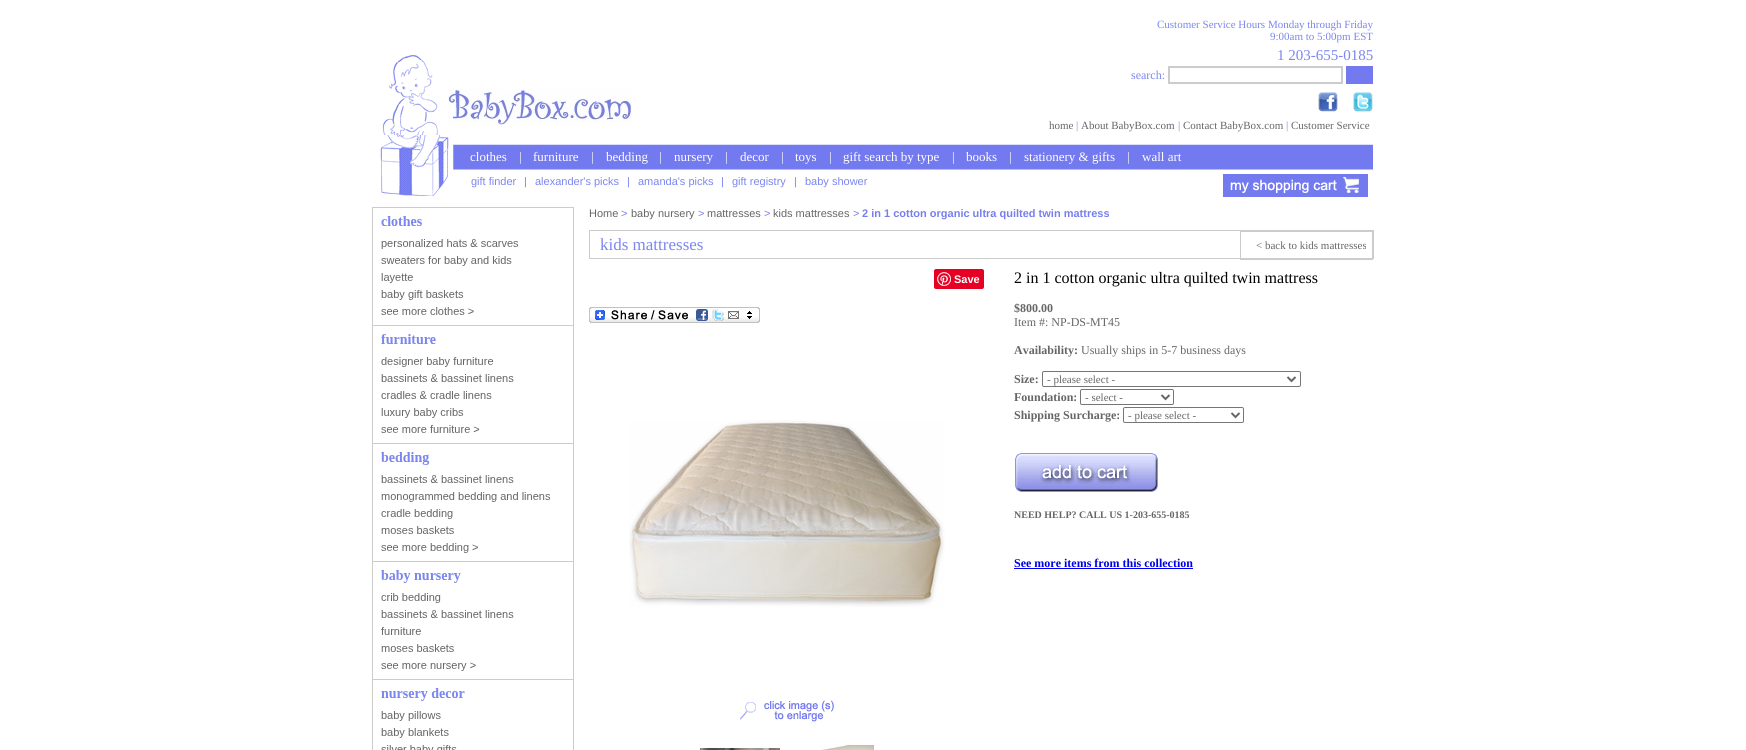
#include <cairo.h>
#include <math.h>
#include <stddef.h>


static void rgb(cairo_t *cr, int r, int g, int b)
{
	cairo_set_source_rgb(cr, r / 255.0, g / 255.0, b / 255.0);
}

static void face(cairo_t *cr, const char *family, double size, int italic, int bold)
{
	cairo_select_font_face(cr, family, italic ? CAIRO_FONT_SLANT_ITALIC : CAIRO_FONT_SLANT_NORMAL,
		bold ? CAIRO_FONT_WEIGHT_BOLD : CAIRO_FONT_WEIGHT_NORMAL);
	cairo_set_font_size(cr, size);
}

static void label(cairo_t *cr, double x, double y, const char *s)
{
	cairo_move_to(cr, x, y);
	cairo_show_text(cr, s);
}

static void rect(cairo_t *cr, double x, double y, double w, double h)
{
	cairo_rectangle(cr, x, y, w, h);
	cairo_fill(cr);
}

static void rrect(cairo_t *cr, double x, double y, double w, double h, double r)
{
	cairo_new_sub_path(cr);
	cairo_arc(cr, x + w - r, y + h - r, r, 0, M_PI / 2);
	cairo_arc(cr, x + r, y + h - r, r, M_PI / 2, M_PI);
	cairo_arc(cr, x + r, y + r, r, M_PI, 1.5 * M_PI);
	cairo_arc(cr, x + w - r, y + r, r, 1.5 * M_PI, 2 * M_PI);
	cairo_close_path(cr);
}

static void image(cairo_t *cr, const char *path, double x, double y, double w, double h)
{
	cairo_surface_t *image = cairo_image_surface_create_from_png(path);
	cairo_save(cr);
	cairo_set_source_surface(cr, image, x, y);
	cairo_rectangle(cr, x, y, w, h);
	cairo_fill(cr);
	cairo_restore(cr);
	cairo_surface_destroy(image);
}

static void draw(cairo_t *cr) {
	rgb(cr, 255, 255, 255);
	cairo_paint(cr);
	image(cr, "image0.png", 380, 55, 993, 141);
	image(cr, "image1.png", 448, 89, 184, 36);
	face(cr, "Liberation Serif", 11, 0, 0);
	rgb(cr, 123, 134, 239);
	label(cr, 1157, 28, "Customer Service Hours Monday through Friday");
	label(cr, 1270, 40, "9:00am to 5:00pm EST");
	face(cr, "Liberation Serif", 15, 0, 0);
	label(cr, 1277, 60, "1 203-655-0185");
	face(cr, "Liberation Serif", 12, 0, 0);
	label(cr, 1131, 79, "search:");
	cairo_rectangle(cr, 1169, 67, 173, 16);
	rgb(cr, 204, 204, 204);
	cairo_stroke(cr);
	rgb(cr, 115, 121, 239);
	rect(cr, 1346, 66, 27, 18);
	image(cr, "image2.png", 1318, 92, 20, 20);
	image(cr, "image3.png", 1353, 92, 20, 20);
	face(cr, "Liberation Serif", 11, 0, 0);
	rgb(cr, 102, 102, 102);
	label(cr, 1049, 129, "home");
	rgb(cr, 123, 134, 239);
	label(cr, 1076, 129, "|");
	rgb(cr, 102, 102, 102);
	label(cr, 1081, 129, "About BabyBox.com");
	rgb(cr, 123, 134, 239);
	label(cr, 1178, 129, "|");
	rgb(cr, 102, 102, 102);
	label(cr, 1183, 129, "Contact BabyBox.com");
	rgb(cr, 123, 134, 239);
	label(cr, 1286, 129, "|");
	rgb(cr, 102, 102, 102);
	label(cr, 1291, 129, "Customer Service");
	face(cr, "Liberation Serif", 13, 0, 0);
	rgb(cr, 255, 255, 255);
	label(cr, 470, 161, "clothes");
	label(cr, 519, 161, "|");
	label(cr, 533, 161, "furniture");
	label(cr, 591, 161, "|");
	label(cr, 606, 161, "bedding");
	label(cr, 659, 161, "|");
	label(cr, 674, 161, "nursery");
	label(cr, 725, 161, "|");
	label(cr, 740, 161, "decor");
	label(cr, 781, 161, "|");
	label(cr, 795, 161, "toys");
	label(cr, 829, 161, "|");
	label(cr, 843, 161, "gift search by type");
	label(cr, 952, 161, "|");
	label(cr, 966, 161, "books");
	label(cr, 1009, 161, "|");
	label(cr, 1024, 161, "stationery & gifts");
	label(cr, 1127, 161, "|");
	label(cr, 1142, 161, "wall art");
	face(cr, "Liberation Sans", 11, 0, 0);
	rgb(cr, 123, 134, 239);
	label(cr, 471, 185, "gift finder");
	label(cr, 524, 185, "|");
	label(cr, 535, 185, "alexander's picks");
	label(cr, 627, 185, "|");
	label(cr, 638, 185, "amanda's picks");
	label(cr, 721, 185, "|");
	label(cr, 732, 185, "gift registry");
	label(cr, 794, 185, "|");
	label(cr, 805, 185, "baby shower");
	image(cr, "image4.png", 1223, 174, 145, 23);
	rgb(cr, 204, 204, 204);
	rect(cr, 573, 207, 1, 543);
	rect(cr, 372, 207, 1, 543);
	image(cr, "image5.png", 373, 207, 200, 543);
	rgb(cr, 102, 102, 102);
	label(cr, 589, 217, "Home");
	rgb(cr, 119, 127, 238);
	label(cr, 621, 217, ">");
	rgb(cr, 102, 102, 102);
	label(cr, 631, 217, "baby nursery");
	rgb(cr, 119, 127, 238);
	label(cr, 698, 217, ">");
	rgb(cr, 102, 102, 102);
	label(cr, 707, 217, "mattresses");
	rgb(cr, 119, 127, 238);
	label(cr, 764, 217, ">");
	rgb(cr, 102, 102, 102);
	label(cr, 773, 217, "kids mattresses");
	rgb(cr, 119, 127, 238);
	label(cr, 853, 217, ">");
	face(cr, "Liberation Sans", 11, 0, 1);
	label(cr, 862, 217, "2 in 1 cotton organic ultra quilted twin mattress");
	cairo_rectangle(cr, 589.5, 230.5, 784, 28);
	rgb(cr, 204, 204, 204);
	cairo_set_line_width(cr, 1);
	cairo_stroke(cr);
	face(cr, "Liberation Serif", 17, 0, 0);
	rgb(cr, 123, 134, 239);
	label(cr, 600, 250, "kids mattresses");
	cairo_rectangle(cr, 1240.5, 231.5, 132, 28);
	rgb(cr, 204, 204, 204);
	cairo_stroke(cr);
	face(cr, "Liberation Serif", 11, 0, 0);
	rgb(cr, 102, 102, 102);
	label(cr, 1256, 249, "< back to kids mattresses");
	rgb(cr, 230, 0, 35);
	rrect(cr, 934, 269, 50, 20, 2);
	cairo_fill(cr);
	image(cr, "image6.png", 937, 272, 14, 14);
	face(cr, "Liberation Sans", 11, 0, 1);
	rgb(cr, 255, 255, 255);
	label(cr, 954, 283, "Save");
	image(cr, "image7.png", 589, 307, 171, 16);
	image(cr, "image8.png", 629, 420, 316, 187);
	image(cr, "image9.png", 740, 700, 94, 22);
	image(cr, "image10.png", 700, 747, 80, 3);
	image(cr, "image11.png", 820, 744, 54, 6);
	face(cr, "Liberation Serif", 16, 0, 0);
	rgb(cr, 0, 0, 0);
	label(cr, 1014, 283, "2 in 1 cotton organic ultra quilted twin mattress");
	face(cr, "Liberation Serif", 12, 0, 1);
	rgb(cr, 102, 102, 102);
	label(cr, 1014, 312, "$800.00");
	face(cr, "Liberation Serif", 12, 0, 0);
	label(cr, 1014, 326, "Item #: NP-DS-MT45");
	face(cr, "Liberation Serif", 12, 0, 1);
	label(cr, 1014, 354, "Availability:");
	face(cr, "Liberation Serif", 12, 0, 0);
	label(cr, 1081, 354, "Usually ships in 5-7 business days");
	face(cr, "Liberation Serif", 12, 0, 1);
	label(cr, 1014, 383, "Size:");
	rrect(cr, 1042.5, 371.5, 258, 15, 1.5);
	rgb(cr, 118, 118, 118);
	cairo_stroke(cr);
	cairo_new_path(cr);
	cairo_move_to(cr, 1287.5, 377);
	cairo_line_to(cr, 1291.5, 381);
	cairo_line_to(cr, 1295.5, 377);
	rgb(cr, 102, 102, 102);
	cairo_set_line_width(cr, 2);
	cairo_stroke(cr);
	face(cr, "Liberation Serif", 11, 0, 0);
	label(cr, 1047, 383, "- please select -");
	face(cr, "Liberation Serif", 12, 0, 1);
	label(cr, 1014, 401, "Foundation:");
	rrect(cr, 1080.5, 389.5, 93, 15, 1.5);
	rgb(cr, 118, 118, 118);
	cairo_set_line_width(cr, 1);
	cairo_stroke(cr);
	cairo_new_path(cr);
	cairo_move_to(cr, 1161.5, 395);
	cairo_line_to(cr, 1165.5, 399);
	cairo_line_to(cr, 1169.5, 395);
	rgb(cr, 102, 102, 102);
	cairo_set_line_width(cr, 2);
	cairo_stroke(cr);
	face(cr, "Liberation Serif", 11, 0, 0);
	label(cr, 1085, 401, "- select -");
	face(cr, "Liberation Serif", 12, 0, 1);
	label(cr, 1014, 419, "Shipping Surcharge:");
	rrect(cr, 1123.5, 407.5, 120, 15, 1.5);
	rgb(cr, 118, 118, 118);
	cairo_set_line_width(cr, 1);
	cairo_stroke(cr);
	cairo_new_path(cr);
	cairo_move_to(cr, 1231.5, 413);
	cairo_line_to(cr, 1235.5, 417);
	cairo_line_to(cr, 1239.5, 413);
	rgb(cr, 102, 102, 102);
	cairo_set_line_width(cr, 2);
	cairo_stroke(cr);
	face(cr, "Liberation Serif", 11, 0, 0);
	label(cr, 1128, 419, "- please select -");
	image(cr, "image12.png", 1015, 453, 143, 39);
	face(cr, "Liberation Serif", 10, 0, 1);
	label(cr, 1014, 518, "NEED HELP? CALL US 1-203-655-0185");
	face(cr, "Liberation Serif", 12, 0, 1);
	rgb(cr, 0, 0, 238);
	label(cr, 1014, 567, "See more items from this collection");
	rect(cr, 1014, 568, 179, 1);
}

int main(void) {
	cairo_surface_t *surface = cairo_image_surface_create(CAIRO_FORMAT_RGB24, 1746, 750);
	cairo_t *cr = cairo_create(surface);
	cairo_font_options_t *options = cairo_font_options_create();
	cairo_font_options_set_hint_metrics(options, CAIRO_HINT_METRICS_OFF);
	cairo_font_options_set_hint_style(options, CAIRO_HINT_STYLE_NONE);
	cairo_set_font_options(cr, options);
	cairo_set_miter_limit(cr, 4);
	draw(cr);
	cairo_surface_write_to_png(surface, "render.png");
	cairo_font_options_destroy(options);
	cairo_destroy(cr);
	cairo_surface_destroy(surface);
	return 0;
}
